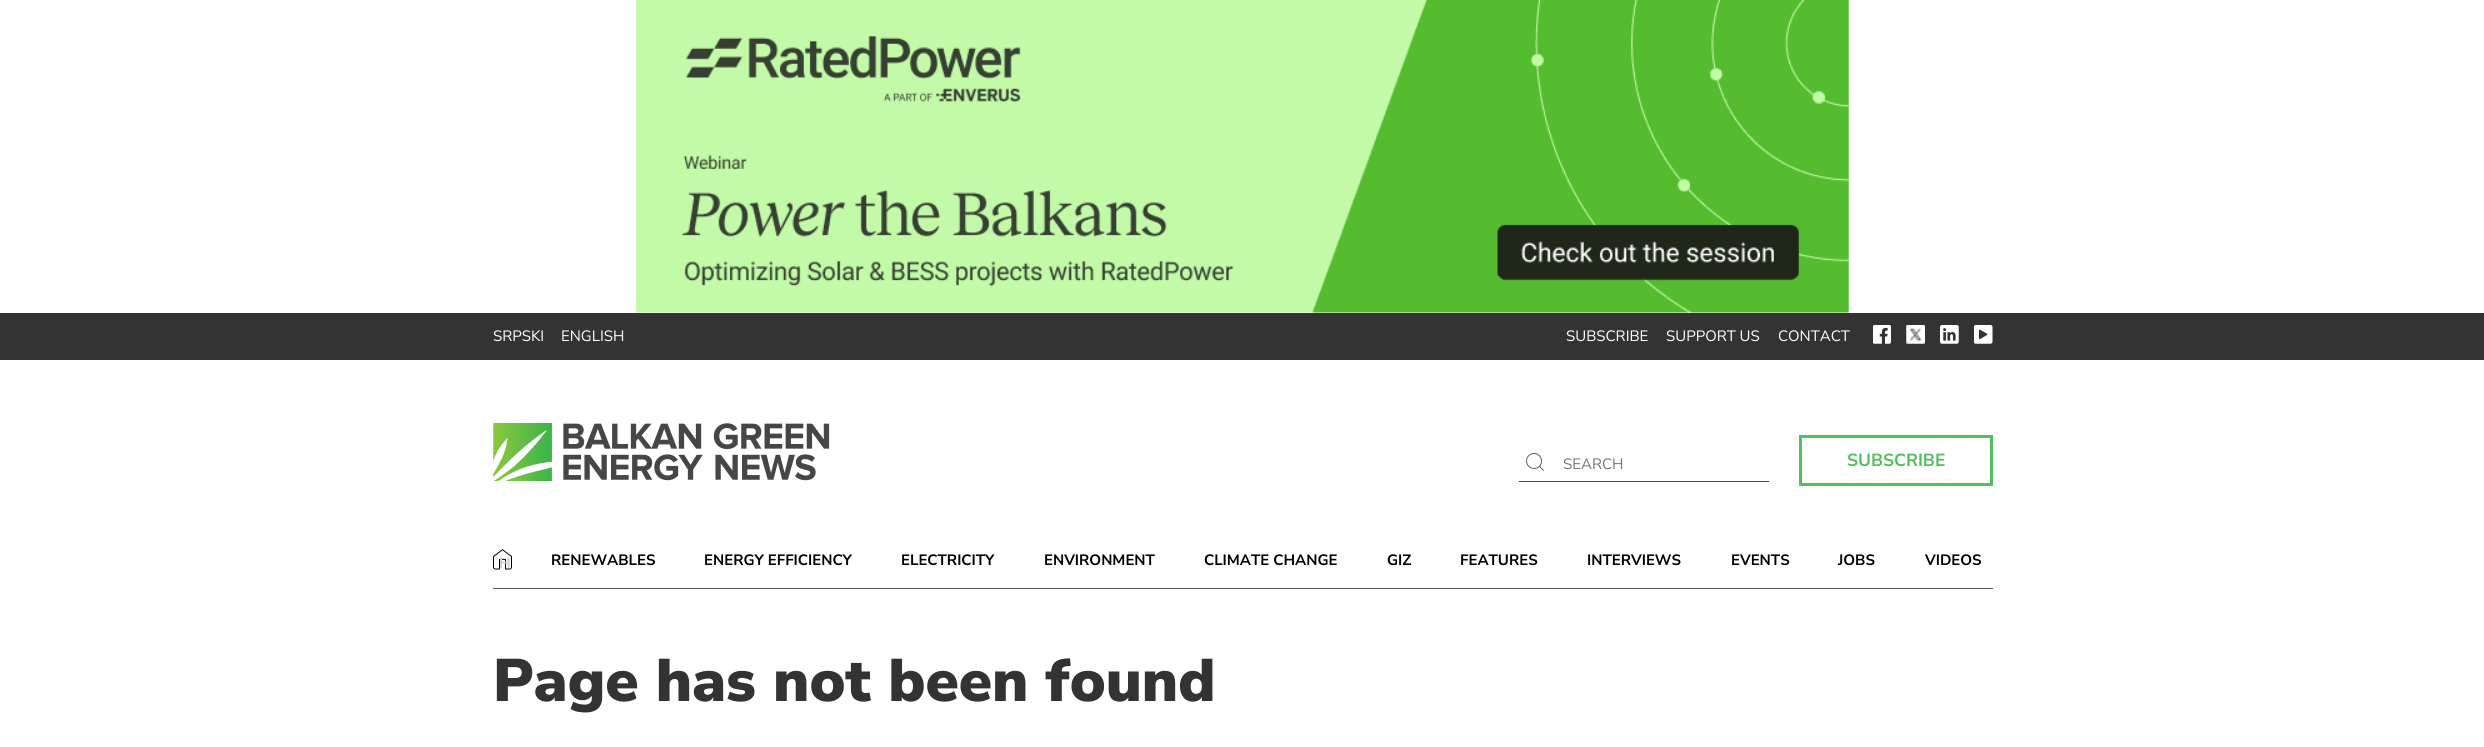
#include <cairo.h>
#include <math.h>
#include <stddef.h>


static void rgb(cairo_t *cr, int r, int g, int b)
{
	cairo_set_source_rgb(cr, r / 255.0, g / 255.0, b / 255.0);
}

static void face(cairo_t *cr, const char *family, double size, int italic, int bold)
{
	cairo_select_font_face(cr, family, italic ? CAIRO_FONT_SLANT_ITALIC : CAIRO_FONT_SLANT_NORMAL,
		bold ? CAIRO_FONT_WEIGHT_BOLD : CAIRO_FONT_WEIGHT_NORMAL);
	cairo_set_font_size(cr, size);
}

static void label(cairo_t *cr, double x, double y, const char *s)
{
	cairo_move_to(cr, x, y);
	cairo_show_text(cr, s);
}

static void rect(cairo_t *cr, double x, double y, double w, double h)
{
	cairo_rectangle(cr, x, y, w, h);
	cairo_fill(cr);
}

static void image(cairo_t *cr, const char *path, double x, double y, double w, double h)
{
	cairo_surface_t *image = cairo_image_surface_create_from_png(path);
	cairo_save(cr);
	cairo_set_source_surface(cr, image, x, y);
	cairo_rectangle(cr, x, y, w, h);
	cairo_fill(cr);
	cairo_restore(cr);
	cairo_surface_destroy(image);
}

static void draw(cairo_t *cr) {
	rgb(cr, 255, 255, 255);
	cairo_paint(cr);
	image(cr, "image0.png", 636, 0, 1213, 313);
	rgb(cr, 51, 51, 51);
	rect(cr, 0, 313, 2484, 47);
	face(cr, "Nunito Sans", 15, 0, 0);
	rgb(cr, 255, 255, 255);
	label(cr, 493, 341, "SRPSKI");
	label(cr, 561, 341, "ENGLISH");
	label(cr, 1566, 341, "SUBSCRIBE");
	label(cr, 1666, 341, "SUPPORT US");
	label(cr, 1778, 341, "CONTACT");
	image(cr, "image1.png", 1873, 325, 18, 19);
	image(cr, "image2.png", 1906, 325, 19, 19);
	image(cr, "image3.png", 1940, 325, 19, 19);
	image(cr, "image4.png", 1974, 325, 19, 19);
	image(cr, "image5.png", 493, 423, 337, 58);
	rgb(cr, 74, 74, 74);
	rect(cr, 1519, 481, 250, 1);
	image(cr, "image6.png", 1526, 453, 18, 18);
	rgb(cr, 117, 117, 117);
	label(cr, 1563, 469, "SEARCH");
	cairo_rectangle(cr, 1800.5, 436.5, 191, 48);
	rgb(cr, 82, 190, 96);
	cairo_set_line_width(cr, 3);
	cairo_stroke(cr);
	face(cr, "Nunito Sans", 17.5, 0, 1);
	label(cr, 1847, 466, "SUBSCRIBE");
	rgb(cr, 88, 88, 90);
	rect(cr, 493, 588, 1500, 1);
	image(cr, "image7.png", 493, 549, 19, 21);
	face(cr, "Nunito Sans", 15, 0, 1);
	rgb(cr, 208, 208, 208);
	label(cr, 499, 568, "H");
	rgb(cr, 0, 0, 0);
	label(cr, 551, 565, "RENEWABLES");
	label(cr, 704, 565, "ENERGY EFFICIENCY");
	label(cr, 901, 565, "ELECTRICITY");
	label(cr, 1044, 565, "ENVIRONMENT");
	label(cr, 1204, 565, "CLIMATE CHANGE");
	label(cr, 1387, 565, "GIZ");
	label(cr, 1460, 565, "FEATURES");
	label(cr, 1587, 565, "INTERVIEWS");
	label(cr, 1731, 565, "EVENTS");
	label(cr, 1838, 565, "JOBS");
	label(cr, 1925, 565, "VIDEOS");
	face(cr, "Nunito Sans Black", 60, 0, 0);
	rgb(cr, 51, 51, 51);
	label(cr, 493, 701, "Page has not been found");
}

int main(void) {
	cairo_surface_t *surface = cairo_image_surface_create(CAIRO_FORMAT_RGB24, 2484, 747);
	cairo_t *cr = cairo_create(surface);
	cairo_font_options_t *options = cairo_font_options_create();
	cairo_font_options_set_hint_metrics(options, CAIRO_HINT_METRICS_OFF);
	cairo_font_options_set_hint_style(options, CAIRO_HINT_STYLE_NONE);
	cairo_set_font_options(cr, options);
	cairo_set_miter_limit(cr, 4);
	draw(cr);
	cairo_surface_write_to_png(surface, "render.png");
	cairo_font_options_destroy(options);
	cairo_destroy(cr);
	cairo_surface_destroy(surface);
	return 0;
}
